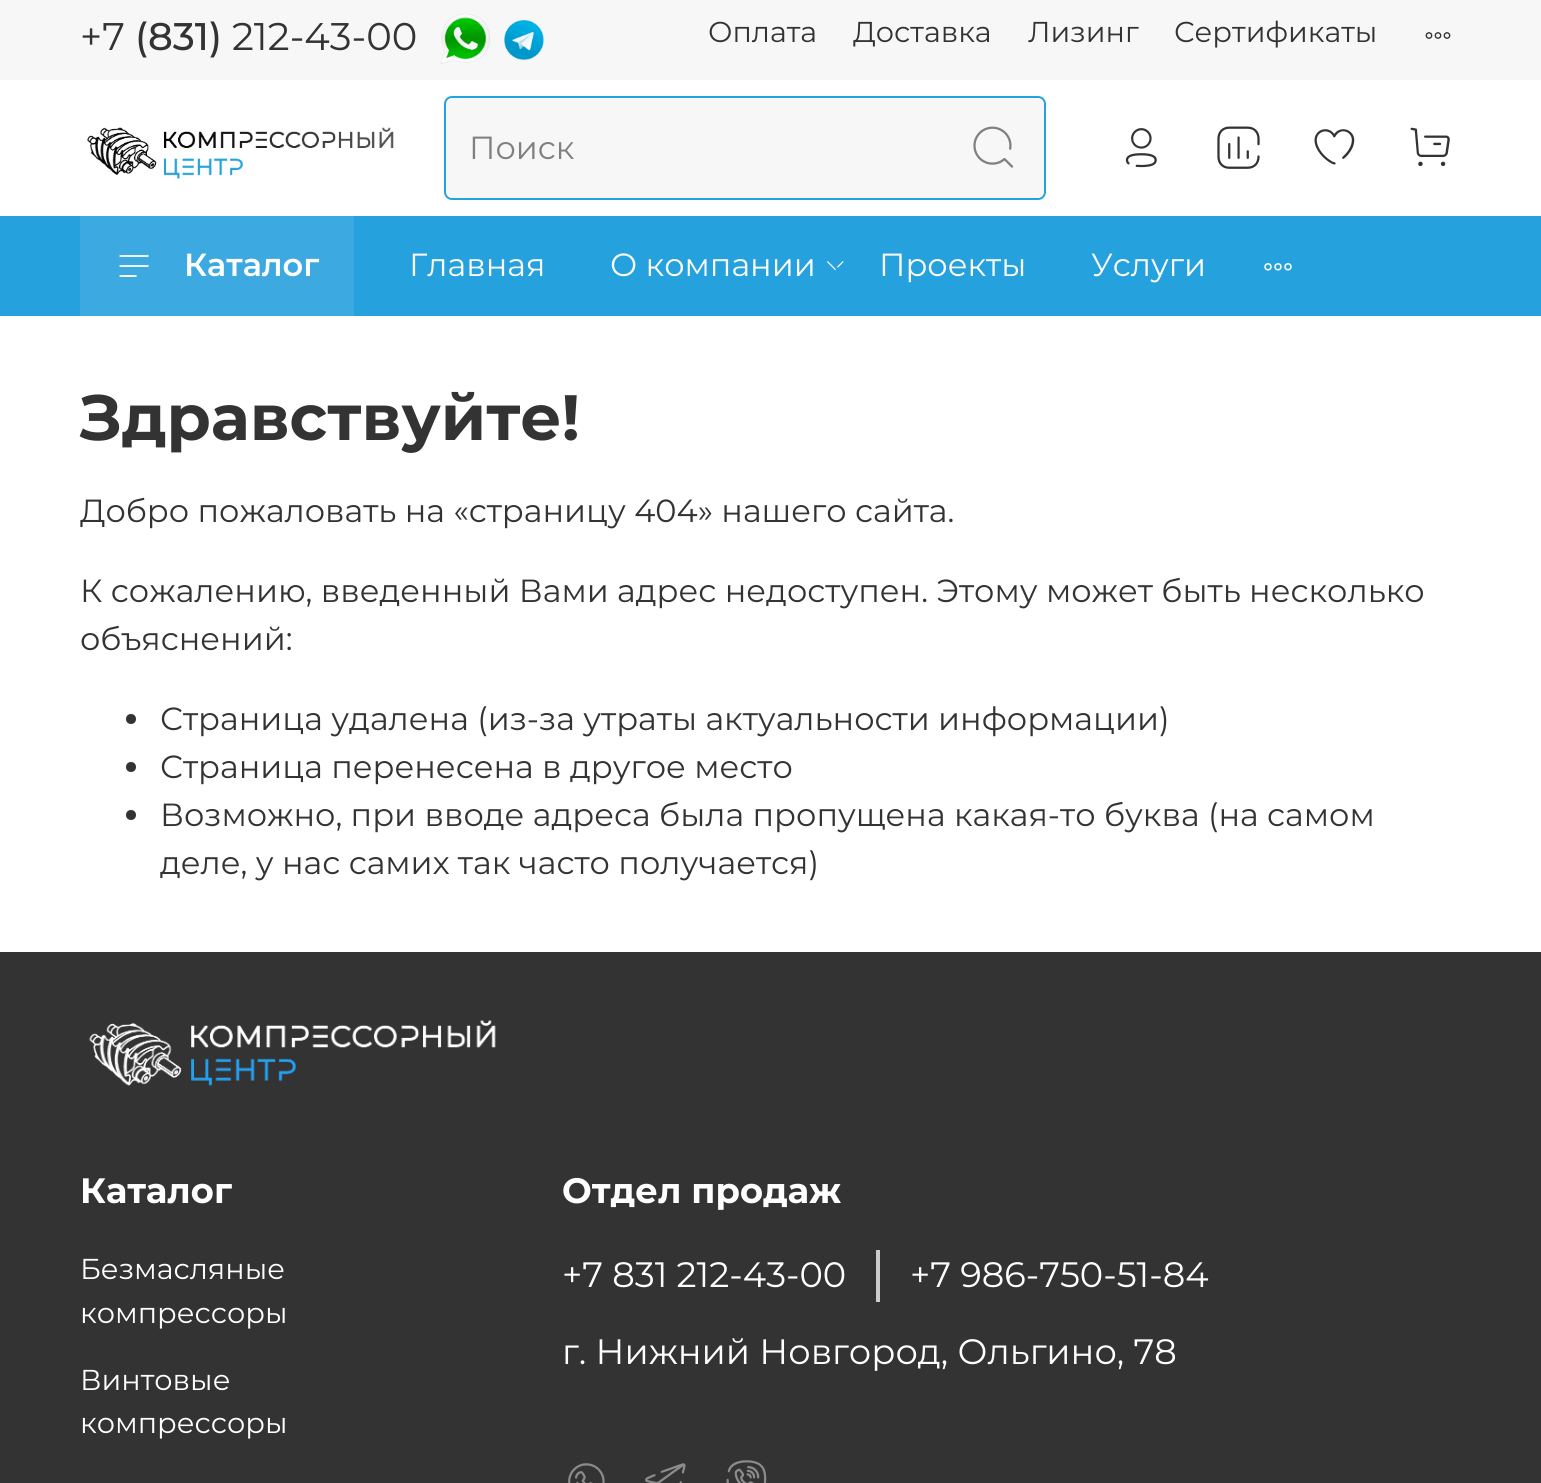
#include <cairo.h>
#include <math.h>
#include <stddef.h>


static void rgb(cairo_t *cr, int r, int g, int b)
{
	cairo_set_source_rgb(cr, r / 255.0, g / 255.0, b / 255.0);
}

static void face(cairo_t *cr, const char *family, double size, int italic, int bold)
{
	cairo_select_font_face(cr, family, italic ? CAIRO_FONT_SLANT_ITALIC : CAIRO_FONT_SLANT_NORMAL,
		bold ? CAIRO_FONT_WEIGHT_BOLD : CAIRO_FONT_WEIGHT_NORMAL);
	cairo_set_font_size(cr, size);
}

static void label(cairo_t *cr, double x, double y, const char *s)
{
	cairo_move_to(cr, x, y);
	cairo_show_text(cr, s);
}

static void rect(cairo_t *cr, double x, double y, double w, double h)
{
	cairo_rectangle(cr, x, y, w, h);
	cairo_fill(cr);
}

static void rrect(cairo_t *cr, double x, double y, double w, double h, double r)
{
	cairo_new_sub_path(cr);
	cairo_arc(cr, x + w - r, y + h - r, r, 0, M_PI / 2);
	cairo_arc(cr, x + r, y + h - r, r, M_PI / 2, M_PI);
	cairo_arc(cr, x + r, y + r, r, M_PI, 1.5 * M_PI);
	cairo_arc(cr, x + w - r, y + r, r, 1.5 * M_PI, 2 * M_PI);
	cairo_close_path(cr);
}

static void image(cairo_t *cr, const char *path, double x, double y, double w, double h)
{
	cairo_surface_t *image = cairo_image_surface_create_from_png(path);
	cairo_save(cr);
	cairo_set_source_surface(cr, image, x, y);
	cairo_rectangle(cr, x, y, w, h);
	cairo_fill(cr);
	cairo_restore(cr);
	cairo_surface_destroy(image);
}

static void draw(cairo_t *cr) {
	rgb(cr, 255, 255, 255);
	cairo_paint(cr);
	rgb(cr, 247, 247, 247);
	rect(cr, 0, 0, 1541, 80);
	face(cr, "Montserrat", 38.5, 0, 0);
	rgb(cr, 51, 51, 51);
	label(cr, 80, 50, "+7");
	face(cr, "Montserrat Medium", 38.5, 0, 0);
	label(cr, 135, 50, "(831)");
	face(cr, "Montserrat", 38.5, 0, 0);
	label(cr, 232, 50, "212-43-00");
	image(cr, "image0.png", 440, 14, 50, 50);
	image(cr, "image1.png", 504, 20, 40, 40);
	face(cr, "Montserrat", 28.75, 0, 0);
	label(cr, 708, 42, "Оплата");
	label(cr, 853, 42, "Доставка");
	label(cr, 1028, 42, "Лизинг");
	label(cr, 1174, 42, "Сертификаты");
	image(cr, "image2.png", 1425, 32, 26, 7);
	image(cr, "image3.png", 87, 127, 307, 52);
	rrect(cr, 445, 97, 600, 102, 7);
	rgb(cr, 37, 161, 221);
	cairo_stroke(cr);
	rgb(cr, 247, 247, 247);
	cairo_new_path(cr);
	cairo_move_to(cr, 454, 98);
	cairo_line_to(cr, 944, 98);
	cairo_line_to(cr, 944, 198);
	cairo_line_to(cr, 454, 198);
	cairo_curve_to(cr, 449.5, 198, 446, 194.5, 446, 190);
	cairo_line_to(cr, 446, 106);
	cairo_curve_to(cr, 446, 101.5, 449.5, 98, 454, 98);
	cairo_close_path(cr);
	cairo_fill(cr);
	face(cr, "Montserrat", 32, 0, 0);
	rgb(cr, 128, 128, 128);
	label(cr, 469, 159, "Поиск");
	rgb(cr, 247, 247, 247);
	cairo_new_path(cr);
	cairo_move_to(cr, 945, 99);
	cairo_line_to(cr, 1036, 99);
	cairo_curve_to(cr, 1040, 99, 1043, 102, 1043, 106);
	cairo_line_to(cr, 1043, 190);
	cairo_curve_to(cr, 1043, 194, 1040, 197, 1036, 197);
	cairo_line_to(cr, 945, 197);
	cairo_close_path(cr);
	cairo_fill_preserve(cr);
	cairo_stroke(cr);
	image(cr, "image4.png", 973, 126, 41, 42);
	image(cr, "image5.png", 1125, 128, 32, 40);
	image(cr, "image6.png", 1217, 126, 43, 43);
	image(cr, "image7.png", 1314, 129, 41, 36);
	image(cr, "image8.png", 1410, 127, 40, 40);
	rgb(cr, 37, 161, 221);
	rect(cr, 0, 216, 1541, 100);
	rgb(cr, 60, 170, 225);
	rect(cr, 80, 216, 274, 100);
	image(cr, "image9.png", 119, 255, 30, 22);
	face(cr, "Montserrat SemiBold", 32, 0, 0);
	rgb(cr, 255, 255, 255);
	label(cr, 184, 276, "Каталог");
	face(cr, "Montserrat", 32, 0, 0);
	label(cr, 409, 276, "Главная");
	label(cr, 610, 276, "О компании");
	image(cr, "image10.png", 827, 261, 17, 9);
	label(cr, 879, 276, "Проекты");
	label(cr, 1091, 276, "Услуги");
	image(cr, "image11.png", 1264, 263, 28, 8);
	face(cr, "Montserrat", 64, 0, 1);
	rgb(cr, 51, 51, 51);
	label(cr, 80, 440, "Здравствуйте!");
	face(cr, "Montserrat", 32, 0, 0);
	label(cr, 80, 522, "Добро пожаловать на «страницу 404» нашего сайта.");
	label(cr, 80, 602, "К сожалению, введенный Вами адрес недоступен. Этому может быть несколько");
	label(cr, 80, 650, "объяснений:");
	cairo_new_path(cr);
	cairo_arc(cr, 131, 719, 5, 0, 2 * M_PI);
	cairo_fill(cr);
	label(cr, 160, 730, "Страница удалена (из-за утраты актуальности информации)");
	cairo_new_path(cr);
	cairo_arc(cr, 131, 767, 5, 0, 2 * M_PI);
	cairo_fill(cr);
	label(cr, 160, 778, "Страница перенесена в другое место");
	cairo_new_path(cr);
	cairo_arc(cr, 131, 815, 5, 0, 2 * M_PI);
	cairo_fill(cr);
	label(cr, 160, 826, "Возможно, при вводе адреса была пропущена какая-то буква (на самом");
	label(cr, 160, 874, "деле, у нас самих так часто получается)");
	rect(cr, 0, 952, 1541, 531);
	image(cr, "image12.png", 89, 1020, 407, 66);
	face(cr, "Montserrat", 35.25, 0, 1);
	rgb(cr, 255, 255, 255);
	label(cr, 80, 1203, "Каталог");
	face(cr, "Montserrat", 28.75, 0, 0);
	label(cr, 80, 1279, "Безмасляные");
	label(cr, 80, 1323, "компрессоры");
	label(cr, 80, 1390, "Винтовые");
	label(cr, 80, 1433, "компрессоры");
	face(cr, "Montserrat", 35.25, 0, 1);
	label(cr, 562, 1203, "Отдел продаж");
	rgb(cr, 204, 204, 204);
	rect(cr, 876, 1250, 4, 52);
	face(cr, "Montserrat", 35.25, 0, 0);
	rgb(cr, 255, 255, 255);
	label(cr, 562, 1287, "+7 831 212-43-00");
	label(cr, 910, 1287, "+7 986-750-51-84");
	label(cr, 562, 1364, "г. Нижний Новгород, Ольгино, 78");
	image(cr, "image13.png", 568, 1463, 37, 20);
	image(cr, "image14.png", 645, 1463, 41, 20);
	image(cr, "image15.png", 726, 1460, 41, 23);
}

int main(void) {
	cairo_surface_t *surface = cairo_image_surface_create(CAIRO_FORMAT_RGB24, 1541, 1483);
	cairo_t *cr = cairo_create(surface);
	cairo_font_options_t *options = cairo_font_options_create();
	cairo_font_options_set_hint_metrics(options, CAIRO_HINT_METRICS_OFF);
	cairo_font_options_set_hint_style(options, CAIRO_HINT_STYLE_NONE);
	cairo_set_font_options(cr, options);
	cairo_set_miter_limit(cr, 4);
	draw(cr);
	cairo_surface_write_to_png(surface, "render.png");
	cairo_font_options_destroy(options);
	cairo_destroy(cr);
	cairo_surface_destroy(surface);
	return 0;
}
